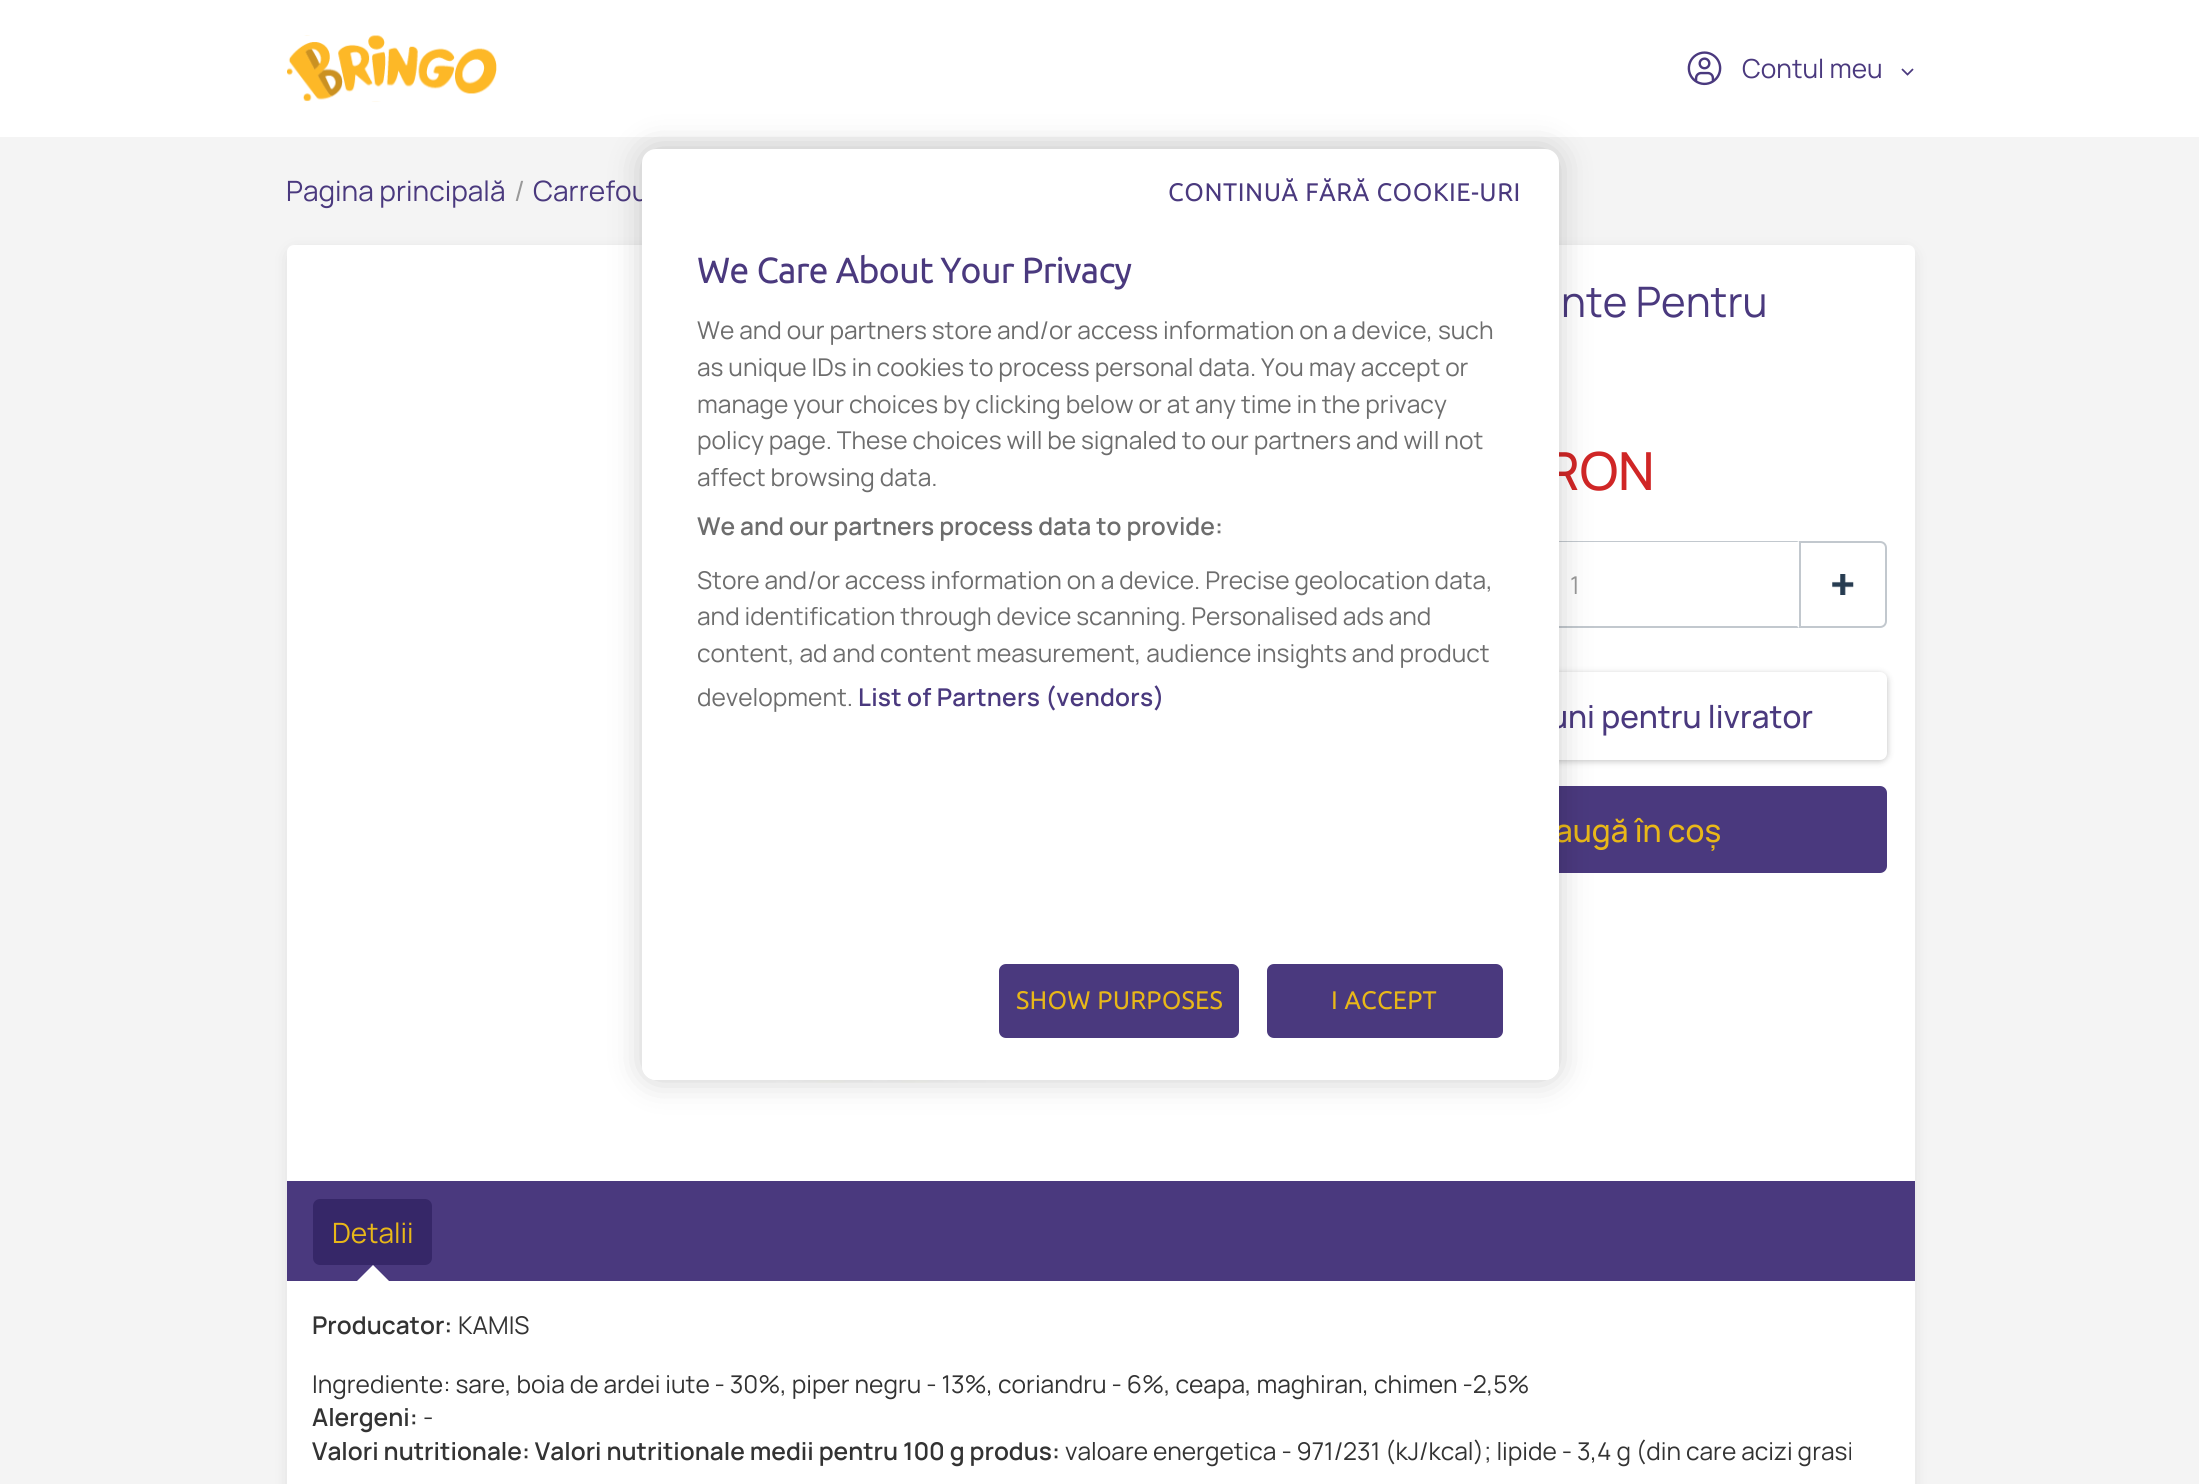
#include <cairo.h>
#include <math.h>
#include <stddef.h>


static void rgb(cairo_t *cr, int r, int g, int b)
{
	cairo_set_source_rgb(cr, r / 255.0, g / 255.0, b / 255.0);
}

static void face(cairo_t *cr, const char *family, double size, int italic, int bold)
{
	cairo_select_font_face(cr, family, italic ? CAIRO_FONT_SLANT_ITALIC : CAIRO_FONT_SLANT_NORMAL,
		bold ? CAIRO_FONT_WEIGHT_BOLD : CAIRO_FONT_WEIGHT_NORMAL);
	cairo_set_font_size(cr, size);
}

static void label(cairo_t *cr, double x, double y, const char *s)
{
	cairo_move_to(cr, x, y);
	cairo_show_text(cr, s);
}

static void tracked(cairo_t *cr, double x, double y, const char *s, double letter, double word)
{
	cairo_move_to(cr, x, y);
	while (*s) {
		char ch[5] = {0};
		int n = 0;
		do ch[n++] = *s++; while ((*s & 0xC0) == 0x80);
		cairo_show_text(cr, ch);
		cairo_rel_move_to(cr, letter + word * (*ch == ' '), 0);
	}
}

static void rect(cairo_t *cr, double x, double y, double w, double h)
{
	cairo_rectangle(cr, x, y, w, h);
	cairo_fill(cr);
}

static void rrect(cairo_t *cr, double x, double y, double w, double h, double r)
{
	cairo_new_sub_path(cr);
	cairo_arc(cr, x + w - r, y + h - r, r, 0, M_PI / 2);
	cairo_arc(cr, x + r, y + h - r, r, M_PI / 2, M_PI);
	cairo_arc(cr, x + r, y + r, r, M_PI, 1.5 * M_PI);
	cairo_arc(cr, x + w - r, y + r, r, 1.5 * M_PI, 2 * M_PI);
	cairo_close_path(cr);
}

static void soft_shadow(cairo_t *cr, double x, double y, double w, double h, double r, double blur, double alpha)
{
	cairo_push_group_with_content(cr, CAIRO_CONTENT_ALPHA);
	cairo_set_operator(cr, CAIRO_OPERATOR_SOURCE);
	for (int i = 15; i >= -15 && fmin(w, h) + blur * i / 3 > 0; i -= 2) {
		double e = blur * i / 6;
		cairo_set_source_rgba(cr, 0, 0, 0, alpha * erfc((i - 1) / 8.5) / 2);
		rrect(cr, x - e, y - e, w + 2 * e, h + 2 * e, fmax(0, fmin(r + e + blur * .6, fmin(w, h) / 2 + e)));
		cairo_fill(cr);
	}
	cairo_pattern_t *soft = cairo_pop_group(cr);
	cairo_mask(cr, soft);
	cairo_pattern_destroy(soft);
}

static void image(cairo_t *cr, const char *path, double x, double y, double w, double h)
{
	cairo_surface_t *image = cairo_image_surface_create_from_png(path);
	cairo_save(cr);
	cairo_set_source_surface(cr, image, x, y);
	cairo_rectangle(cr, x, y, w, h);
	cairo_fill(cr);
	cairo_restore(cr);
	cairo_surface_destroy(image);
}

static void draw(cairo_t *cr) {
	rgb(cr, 244, 244, 244);
	cairo_paint(cr);
	rgb(cr, 255, 255, 255);
	rect(cr, 0, 0, 2199, 137);
	image(cr, "image0.png", 287, 35, 210, 67);
	image(cr, "image1.png", 1687, 51, 35, 35);
	face(cr, "Manrope", 26.25, 0, 0);
	rgb(cr, 74, 57, 126);
	label(cr, 1742, 78, "Contul meu");
	image(cr, "image2.png", 1901, 68, 13, 8);
	face(cr, "Manrope", 28, 0, 0);
	label(cr, 286, 201, "Pagina principală");
	rgb(cr, 153, 153, 153);
	label(cr, 514, 201, "/");
	rgb(cr, 74, 57, 126);
	label(cr, 533, 201, "Carrefou");
	rgb(cr, 0, 0, 0);
	soft_shadow(cr, 294, 256, 1614, 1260, 0, 10.5, 0.15);
	rgb(cr, 255, 255, 255);
	rrect(cr, 287, 245, 1628, 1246, 7);
	cairo_fill(cr);
	face(cr, "Manrope", 42, 0, 0);
	rgb(cr, 74, 57, 126);
	label(cr, 1561, 317, "nte Pentru");
	face(cr, "Manrope Medium", 52.5, 0, 0);
	rgb(cr, 208, 38, 38);
	label(cr, 1546, 490, "RON");
	rgb(cr, 194, 200, 206);
	cairo_new_path(cr);
	cairo_move_to(cr, 1349, 541);
	cairo_line_to(cr, 1799, 541);
	cairo_line_to(cr, 1797, 542);
	cairo_line_to(cr, 1351, 542);
	cairo_close_path(cr);
	cairo_fill(cr);
	cairo_new_path(cr);
	cairo_move_to(cr, 1799, 628);
	cairo_line_to(cr, 1349, 628);
	cairo_line_to(cr, 1351, 626);
	cairo_line_to(cr, 1797, 626);
	cairo_close_path(cr);
	cairo_fill(cr);
	face(cr, "Manrope", 24.5, 0, 0);
	rgb(cr, 153, 153, 153);
	label(cr, 1570, 594, "1");
	cairo_new_path(cr);
	cairo_move_to(cr, 1800, 542);
	cairo_line_to(cr, 1880, 542);
	cairo_curve_to(cr, 1883.5, 542, 1886, 544.5, 1886, 548);
	cairo_line_to(cr, 1886, 621);
	cairo_curve_to(cr, 1886, 624.5, 1883.5, 627, 1880, 627);
	cairo_line_to(cr, 1800, 627);
	cairo_close_path(cr);
	rgb(cr, 194, 200, 206);
	cairo_stroke(cr);
	image(cr, "image3.png", 1832, 574, 22, 21);
	rgb(cr, 0, 0, 0);
	soft_shadow(cr, 1262, 674, 625, 87, 7, 3.5, 0.25);
	rgb(cr, 255, 255, 255);
	rrect(cr, 1262, 672, 625, 88, 7);
	cairo_fill(cr);
	face(cr, "Manrope Medium", 31.5, 0, 0);
	rgb(cr, 74, 57, 126);
	label(cr, 1549, 728, "uni pentru livrator");
	rrect(cr, 1262, 786, 625, 87, 7);
	cairo_fill(cr);
	rgb(cr, 233, 184, 24);
	label(cr, 1555, 842, "augă în coș");
	image(cr, "image4.png", 704, 1080, 347, 3);
	rgb(cr, 74, 57, 126);
	rect(cr, 287, 1181, 1628, 100);
	rgb(cr, 54, 39, 104);
	rrect(cr, 313, 1199, 119, 66, 7);
	cairo_fill(cr);
	face(cr, "Manrope", 28, 0, 0);
	rgb(cr, 233, 184, 24);
	label(cr, 332, 1243, "Detalii");
	rgb(cr, 255, 255, 255);
	cairo_new_path(cr);
	cairo_move_to(cr, 394, 1286);
	cairo_line_to(cr, 352, 1286);
	cairo_line_to(cr, 373, 1265);
	cairo_close_path(cr);
	cairo_fill(cr);
	face(cr, "Manrope SemiBold", 24.5, 0, 0);
	rgb(cr, 51, 51, 51);
	label(cr, 312, 1334, "Producator:");
	face(cr, "Manrope", 24.5, 0, 0);
	label(cr, 458, 1334, "KAMIS");
	label(cr, 312, 1393, "Ingrediente: sare, boia de ardei iute - 30%, piper negru - 13%, coriandru - 6%, ceapa, maghiran, chimen -2,5%");
	face(cr, "Manrope SemiBold", 24.5, 0, 0);
	label(cr, 312, 1426, "Alergeni:");
	face(cr, "Manrope", 24.5, 0, 0);
	label(cr, 423, 1426, "-");
	face(cr, "Manrope SemiBold", 24.5, 0, 0);
	label(cr, 312, 1460, "Valori nutritionale: Valori nutritionale medii pentru 100 g produs:");
	face(cr, "Manrope", 24.5, 0, 0);
	label(cr, 1065, 1460, "valoare energetica - 971/231 (kJ/kcal); lipide - 3,4 g (din care acizi grasi");
	rgb(cr, 0, 0, 0);
	soft_shadow(cr, 642, 149, 917, 931, 14, 16, 0.2);
	rgb(cr, 255, 255, 255);
	rrect(cr, 642, 149, 917, 931, 14);
	cairo_fill(cr);
	face(cr, "Ubuntu", 24.5, 0, 1);
	rgb(cr, 74, 57, 126);
	tracked(cr, 1168, 201, "CONTINUĂ FĂRĂ COOKIE-URI", 1.25, 0);
	face(cr, "Ubuntu", 35, 0, 1);
	label(cr, 697, 283, "We Care About Your Privacy");
	face(cr, "Manrope", 24.5, 0, 0);
	rgb(cr, 109, 109, 109);
	label(cr, 697, 339, "We and our partners store and/or access information on a device, such");
	label(cr, 697, 376, "as unique IDs in cookies to process personal data. You may accept or");
	label(cr, 697, 413, "manage your choices by clicking below or at any time in the privacy");
	label(cr, 697, 449, "policy page. These choices will be signaled to our partners and will not");
	label(cr, 697, 486, "affect browsing data.");
	face(cr, "Manrope SemiBold", 24.5, 0, 0);
	label(cr, 697, 535, "We and our partners process data to provide:");
	face(cr, "Manrope", 24.5, 0, 0);
	label(cr, 697, 589, "Store and/or access information on a device. Precise geolocation data,");
	label(cr, 697, 625, "and identification through device scanning. Personalised ads and");
	label(cr, 697, 662, "content, ad and content measurement, audience insights and product");
	label(cr, 697, 706, "development.");
	face(cr, "Manrope SemiBold", 24.5, 0, 0);
	rgb(cr, 74, 57, 126);
	tracked(cr, 858, 706, "List of Partners (vendors)", 0.25, 0);
	rgb(cr, 255, 255, 255);
	cairo_new_path(cr);
	cairo_move_to(cr, 642, 936);
	cairo_line_to(cr, 1559, 936);
	cairo_line_to(cr, 1559, 1066);
	cairo_curve_to(cr, 1559, 1073.5, 1552.5, 1080, 1545, 1080);
	cairo_line_to(cr, 656, 1080);
	cairo_curve_to(cr, 648.5, 1080, 642, 1073.5, 642, 1066);
	cairo_close_path(cr);
	cairo_fill(cr);
	rgb(cr, 74, 57, 126);
	rrect(cr, 1000, 965, 238, 72, 6);
	cairo_fill_preserve(cr);
	cairo_stroke(cr);
	face(cr, "Ubuntu", 24.5, 0, 1);
	rgb(cr, 233, 184, 24);
	tracked(cr, 1016, 1009, "SHOW PURPOSES", 0.9, 0);
	rgb(cr, 74, 57, 126);
	rrect(cr, 1268, 965, 234, 72, 6);
	cairo_fill_preserve(cr);
	cairo_stroke(cr);
	rgb(cr, 233, 184, 24);
	tracked(cr, 1331, 1009, "I ACCEPT", 0.9, 0);
}

int main(void) {
	cairo_surface_t *surface = cairo_image_surface_create(CAIRO_FORMAT_RGB24, 2199, 1484);
	cairo_t *cr = cairo_create(surface);
	cairo_font_options_t *options = cairo_font_options_create();
	cairo_font_options_set_hint_metrics(options, CAIRO_HINT_METRICS_OFF);
	cairo_font_options_set_hint_style(options, CAIRO_HINT_STYLE_NONE);
	cairo_set_font_options(cr, options);
	cairo_set_miter_limit(cr, 4);
	draw(cr);
	cairo_surface_write_to_png(surface, "render.png");
	cairo_font_options_destroy(options);
	cairo_destroy(cr);
	cairo_surface_destroy(surface);
	return 0;
}
